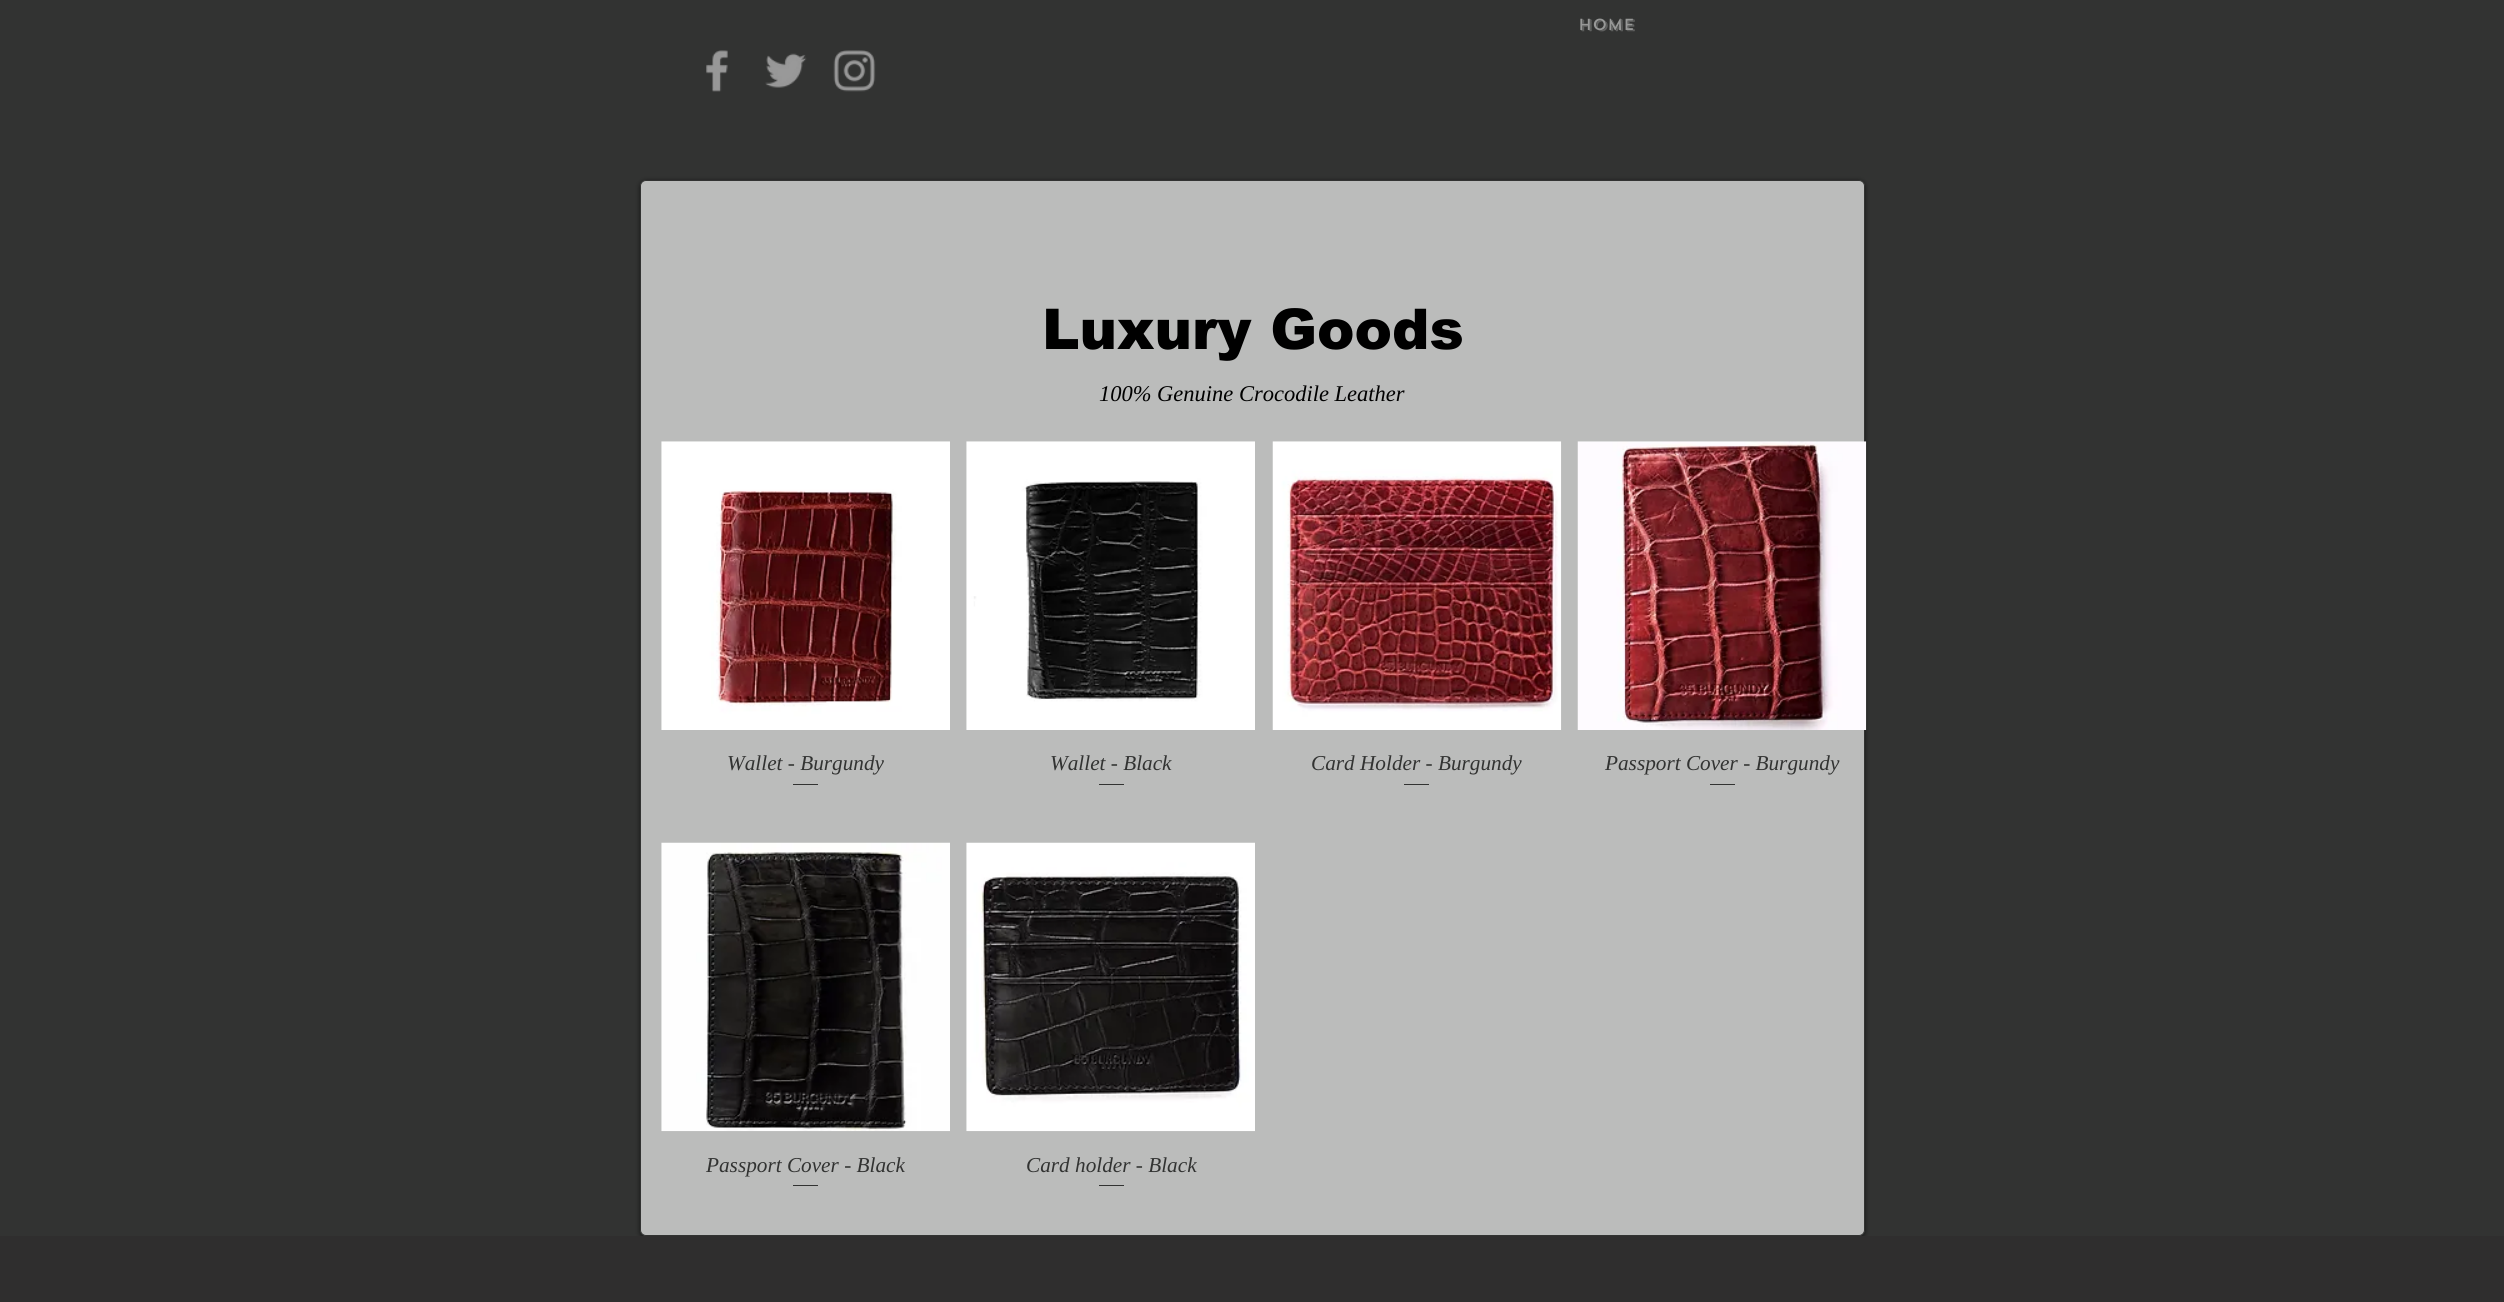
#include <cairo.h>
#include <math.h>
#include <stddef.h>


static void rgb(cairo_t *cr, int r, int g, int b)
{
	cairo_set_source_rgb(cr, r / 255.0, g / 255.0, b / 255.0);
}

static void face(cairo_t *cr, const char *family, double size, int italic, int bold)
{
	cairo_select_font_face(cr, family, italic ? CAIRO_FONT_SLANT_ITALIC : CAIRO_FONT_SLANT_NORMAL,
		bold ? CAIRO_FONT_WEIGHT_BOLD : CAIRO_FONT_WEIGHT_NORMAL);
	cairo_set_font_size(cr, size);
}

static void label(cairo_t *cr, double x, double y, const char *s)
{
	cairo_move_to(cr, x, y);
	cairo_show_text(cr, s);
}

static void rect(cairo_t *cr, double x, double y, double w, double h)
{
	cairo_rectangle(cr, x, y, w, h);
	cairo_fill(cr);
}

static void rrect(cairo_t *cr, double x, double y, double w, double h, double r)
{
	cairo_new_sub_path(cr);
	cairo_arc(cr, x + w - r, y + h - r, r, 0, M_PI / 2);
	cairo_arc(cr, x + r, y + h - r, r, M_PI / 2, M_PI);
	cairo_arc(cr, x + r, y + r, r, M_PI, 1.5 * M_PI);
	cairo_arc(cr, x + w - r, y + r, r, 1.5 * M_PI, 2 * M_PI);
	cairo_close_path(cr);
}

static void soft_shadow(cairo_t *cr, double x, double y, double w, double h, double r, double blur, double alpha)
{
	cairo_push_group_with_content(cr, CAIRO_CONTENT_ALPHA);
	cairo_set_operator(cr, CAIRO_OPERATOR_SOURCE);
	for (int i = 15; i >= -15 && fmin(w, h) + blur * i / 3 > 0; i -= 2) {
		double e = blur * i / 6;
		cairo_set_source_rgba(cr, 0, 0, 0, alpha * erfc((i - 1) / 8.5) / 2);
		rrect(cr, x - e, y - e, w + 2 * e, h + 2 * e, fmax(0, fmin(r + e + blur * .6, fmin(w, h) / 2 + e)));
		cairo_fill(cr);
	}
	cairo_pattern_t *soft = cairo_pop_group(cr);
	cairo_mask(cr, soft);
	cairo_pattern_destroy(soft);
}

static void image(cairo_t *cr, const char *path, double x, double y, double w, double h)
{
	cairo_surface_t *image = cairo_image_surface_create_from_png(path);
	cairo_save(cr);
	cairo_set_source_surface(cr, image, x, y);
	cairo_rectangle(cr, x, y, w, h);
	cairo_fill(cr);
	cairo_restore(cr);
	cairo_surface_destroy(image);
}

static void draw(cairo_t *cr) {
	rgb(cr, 50, 51, 50);
	cairo_paint(cr);
	face(cr, "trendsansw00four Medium", 16, 0, 0);
	rgb(cr, 151, 152, 151);
	label(cr, 1578, 30, "HOME");
	image(cr, "image0.png", 706, 50, 22, 42);
	image(cr, "image1.png", 765, 53, 42, 35);
	image(cr, "image2.png", 833, 50, 43, 42);
	cairo_save(cr);
	cairo_set_fill_rule(cr, CAIRO_FILL_RULE_EVEN_ODD);
	cairo_new_path(cr);
	cairo_move_to(cr, 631, 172);
	cairo_line_to(cr, 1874, 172);
	cairo_line_to(cr, 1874, 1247);
	cairo_line_to(cr, 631, 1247);
	cairo_close_path(cr);
	cairo_move_to(cr, 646, 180);
	cairo_line_to(cr, 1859, 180);
	cairo_curve_to(cr, 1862.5, 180, 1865, 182.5, 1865, 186);
	cairo_line_to(cr, 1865, 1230);
	cairo_curve_to(cr, 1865, 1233.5, 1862.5, 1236, 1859, 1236);
	cairo_line_to(cr, 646, 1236);
	cairo_curve_to(cr, 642.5, 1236, 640, 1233.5, 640, 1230);
	cairo_line_to(cr, 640, 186);
	cairo_curve_to(cr, 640, 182.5, 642.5, 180, 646, 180);
	cairo_close_path(cr);
	cairo_clip(cr);
	rgb(cr, 0, 0, 0);
	soft_shadow(cr, 640, 181, 1225, 1057, 6, 2.5, 0.6);
	cairo_restore(cr);
	cairo_set_source_rgba(cr, 1, 1, 1, 0.67);
	rrect(cr, 640.5, 180.5, 1224, 1055, 5.5);
	cairo_fill_preserve(cr);
	rgb(cr, 50, 51, 50);
	cairo_set_line_width(cr, 1);
	cairo_stroke(cr);
	face(cr, "arial Black", 56.25, 0, 0);
	rgb(cr, 0, 0, 0);
	label(cr, 1042, 349, "Luxury Goods");
	face(cr, "Liberation Serif", 22.5, 1, 0);
	label(cr, 1099, 401, "100% Genuine Crocodile Leather");
	image(cr, "image3.png", 661, 441, 289, 289);
	face(cr, "Liberation Serif", 21.25, 1, 0);
	rgb(cr, 50, 51, 50);
	label(cr, 727, 770, "Wallet - Burgundy");
	rect(cr, 793, 784, 25, 1);
	image(cr, "image4.png", 966, 441, 289, 289);
	label(cr, 1050, 770, "Wallet - Black");
	rect(cr, 1099, 784, 25, 1);
	image(cr, "image5.png", 1272, 441, 290, 289);
	label(cr, 1311, 770, "Card Holder - Burgundy");
	rect(cr, 1404, 784, 25, 1);
	image(cr, "image6.png", 1577, 441, 290, 289);
	label(cr, 1605, 770, "Passport Cover - Burgundy");
	rect(cr, 1710, 784, 25, 1);
	image(cr, "image7.png", 661, 842, 289, 290);
	label(cr, 706, 1172, "Passport Cover - Black");
	rect(cr, 793, 1185, 25, 1);
	image(cr, "image8.png", 966, 842, 289, 290);
	label(cr, 1026, 1172, "Card holder - Black");
	rect(cr, 1099, 1185, 25, 1);
	rgb(cr, 47, 46, 46);
	rect(cr, 0, 1236, 2504, 66);
}

int main(void) {
	cairo_surface_t *surface = cairo_image_surface_create(CAIRO_FORMAT_RGB24, 2504, 1302);
	cairo_t *cr = cairo_create(surface);
	cairo_font_options_t *options = cairo_font_options_create();
	cairo_font_options_set_hint_metrics(options, CAIRO_HINT_METRICS_OFF);
	cairo_font_options_set_hint_style(options, CAIRO_HINT_STYLE_NONE);
	cairo_set_font_options(cr, options);
	cairo_set_miter_limit(cr, 4);
	draw(cr);
	cairo_surface_write_to_png(surface, "render.png");
	cairo_font_options_destroy(options);
	cairo_destroy(cr);
	cairo_surface_destroy(surface);
	return 0;
}
